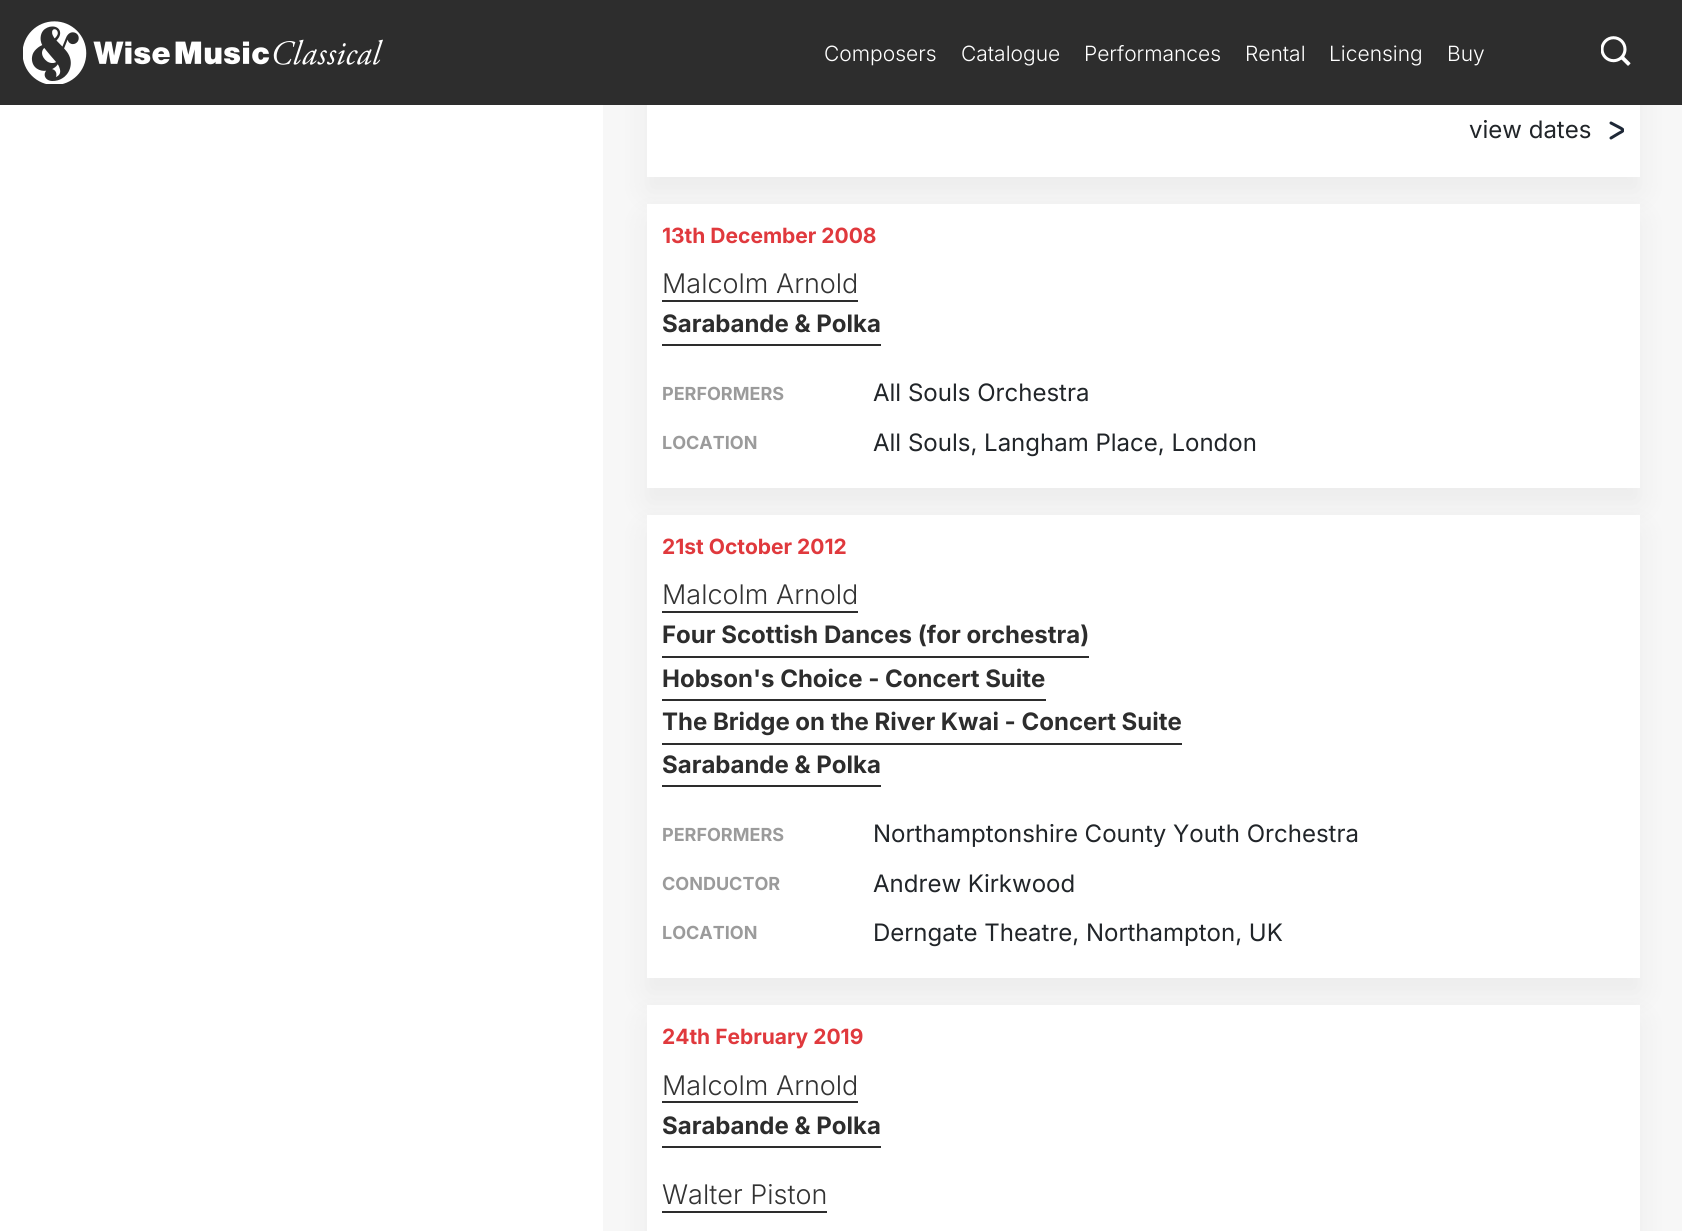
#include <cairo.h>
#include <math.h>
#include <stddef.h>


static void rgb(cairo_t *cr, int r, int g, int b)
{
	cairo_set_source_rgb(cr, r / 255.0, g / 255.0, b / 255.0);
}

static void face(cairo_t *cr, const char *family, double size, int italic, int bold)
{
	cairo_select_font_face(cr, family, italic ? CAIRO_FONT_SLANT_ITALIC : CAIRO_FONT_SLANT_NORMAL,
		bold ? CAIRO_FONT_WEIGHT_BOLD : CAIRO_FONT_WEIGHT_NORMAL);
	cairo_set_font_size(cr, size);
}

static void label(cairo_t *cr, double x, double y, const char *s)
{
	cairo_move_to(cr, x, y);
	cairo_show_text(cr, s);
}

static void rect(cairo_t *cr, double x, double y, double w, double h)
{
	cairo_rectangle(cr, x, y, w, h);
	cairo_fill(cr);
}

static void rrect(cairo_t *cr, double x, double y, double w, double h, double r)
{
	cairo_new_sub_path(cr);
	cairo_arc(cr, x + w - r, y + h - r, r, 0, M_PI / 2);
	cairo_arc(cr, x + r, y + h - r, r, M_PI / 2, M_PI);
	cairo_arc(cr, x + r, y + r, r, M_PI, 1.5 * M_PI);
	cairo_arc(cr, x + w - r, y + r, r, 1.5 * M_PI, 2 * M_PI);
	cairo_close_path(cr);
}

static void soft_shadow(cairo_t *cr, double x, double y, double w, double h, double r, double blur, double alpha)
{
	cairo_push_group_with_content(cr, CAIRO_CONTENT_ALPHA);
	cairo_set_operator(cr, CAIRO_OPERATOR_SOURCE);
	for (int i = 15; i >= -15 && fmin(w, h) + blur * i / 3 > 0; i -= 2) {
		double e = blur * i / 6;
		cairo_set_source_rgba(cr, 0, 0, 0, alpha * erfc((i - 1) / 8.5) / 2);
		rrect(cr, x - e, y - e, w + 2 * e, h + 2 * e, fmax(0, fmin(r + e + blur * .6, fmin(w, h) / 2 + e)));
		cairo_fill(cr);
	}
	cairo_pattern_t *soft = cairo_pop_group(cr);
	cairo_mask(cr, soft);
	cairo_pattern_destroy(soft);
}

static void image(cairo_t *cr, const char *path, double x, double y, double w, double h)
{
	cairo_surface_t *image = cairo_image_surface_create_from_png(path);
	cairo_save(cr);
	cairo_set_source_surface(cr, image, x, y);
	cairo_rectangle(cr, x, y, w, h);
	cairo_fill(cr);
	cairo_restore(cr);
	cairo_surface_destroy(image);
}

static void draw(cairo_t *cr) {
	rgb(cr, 255, 255, 255);
	cairo_paint(cr);
	rgb(cr, 247, 247, 247);
	rect(cr, 603, 105, 1079, 1126);
	rgb(cr, 0, 0, 0);
	soft_shadow(cr, 647, -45, 993, 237, 0, 15, 0.05);
	rgb(cr, 45, 45, 45);
	rect(cr, 0, 0, 1682, 105);
	image(cr, "image0.png", 23, 21, 360, 63);
	face(cr, "Inter Light", 21, 0, 0);
	rgb(cr, 255, 255, 255);
	label(cr, 824, 61, "Composers");
	label(cr, 961, 61, "Catalogue");
	label(cr, 1084, 61, "Performances");
	label(cr, 1245, 61, "Rental");
	label(cr, 1329, 61, "Licensing");
	label(cr, 1447, 61, "Buy");
	image(cr, "image1.png", 1601, 36, 30, 30);
	rect(cr, 647, 105, 993, 72);
	face(cr, "Inter", 24, 0, 0);
	rgb(cr, 33, 37, 41);
	label(cr, 1469, 138, "view dates");
	cairo_save(cr);
	cairo_new_path(cr);
	cairo_move_to(cr, 1609, 139.5);
	cairo_line_to(cr, 1609, 121.5);
	cairo_line_to(cr, 1624, 121.5);
	cairo_line_to(cr, 1624, 139.5);
	cairo_close_path(cr);
	cairo_clip(cr);
	cairo_new_path(cr);
	cairo_move_to(cr, 1611, 138);
	cairo_line_to(cr, 1618.5, 133.5);
	cairo_curve_to(cr, 1623, 131, 1625, 130.5, 1620.5, 128);
	cairo_line_to(cr, 1611, 123);
	rgb(cr, 30, 40, 55);
	cairo_set_line_width(cr, 3);
	cairo_set_line_cap(cr, CAIRO_LINE_CAP_ROUND);
	cairo_stroke(cr);
	cairo_restore(cr);
	rgb(cr, 0, 0, 0);
	soft_shadow(cr, 647, 219, 993, 284, 0, 15, 0.05);
	rgb(cr, 255, 255, 255);
	rect(cr, 647, 204, 993, 284);
	face(cr, "Inter", 21, 0, 1);
	rgb(cr, 224, 57, 61);
	label(cr, 662, 243, "13th December 2008");
	face(cr, "Inter Light", 27, 0, 0);
	rgb(cr, 51, 51, 51);
	label(cr, 662, 293, "Malcolm Arnold");
	rgb(cr, 45, 45, 45);
	rect(cr, 662, 300, 196, 2);
	rect(cr, 662, 344, 219, 2);
	face(cr, "Inter", 24, 0, 1);
	label(cr, 662, 332, "Sarabande & Polka");
	face(cr, "Inter", 18, 0, 1);
	rgb(cr, 155, 155, 155);
	label(cr, 662, 400, "PERFORMERS");
	face(cr, "Inter", 24, 0, 0);
	rgb(cr, 33, 37, 41);
	label(cr, 873, 401, "All Souls Orchestra");
	face(cr, "Inter", 18, 0, 1);
	rgb(cr, 155, 155, 155);
	label(cr, 662, 449, "LOCATION");
	face(cr, "Inter", 24, 0, 0);
	rgb(cr, 33, 37, 41);
	label(cr, 873, 451, "All Souls, Langham Place, London");
	rgb(cr, 0, 0, 0);
	soft_shadow(cr, 647, 530, 993, 463, 0, 15, 0.05);
	rgb(cr, 255, 255, 255);
	rect(cr, 647, 515, 993, 463);
	face(cr, "Inter", 21, 0, 1);
	rgb(cr, 224, 57, 61);
	label(cr, 662, 554, "21st October 2012");
	face(cr, "Inter Light", 27, 0, 0);
	rgb(cr, 51, 51, 51);
	label(cr, 662, 604, "Malcolm Arnold");
	rgb(cr, 45, 45, 45);
	rect(cr, 662, 611, 196, 2);
	rect(cr, 662, 656, 427, 2);
	face(cr, "Inter", 24, 0, 1);
	label(cr, 662, 643, "Four Scottish Dances (for orchestra)");
	rect(cr, 662, 699, 384, 2);
	label(cr, 662, 687, "Hobson's Choice - Concert Suite");
	rect(cr, 662, 743, 520, 2);
	label(cr, 662, 730, "The Bridge on the River Kwai - Concert Suite");
	rect(cr, 662, 785, 219, 2);
	label(cr, 662, 773, "Sarabande & Polka");
	face(cr, "Inter", 18, 0, 1);
	rgb(cr, 155, 155, 155);
	label(cr, 662, 841, "PERFORMERS");
	face(cr, "Inter", 24, 0, 0);
	rgb(cr, 33, 37, 41);
	label(cr, 873, 842, "Northamptonshire County Youth Orchestra");
	face(cr, "Inter", 18, 0, 1);
	rgb(cr, 155, 155, 155);
	label(cr, 662, 890, "CONDUCTOR");
	face(cr, "Inter", 24, 0, 0);
	rgb(cr, 33, 37, 41);
	label(cr, 873, 892, "Andrew Kirkwood");
	face(cr, "Inter", 18, 0, 1);
	rgb(cr, 155, 155, 155);
	label(cr, 662, 939, "LOCATION");
	face(cr, "Inter", 24, 0, 0);
	rgb(cr, 33, 37, 41);
	label(cr, 873, 941, "Derngate Theatre, Northampton, UK");
	rgb(cr, 0, 0, 0);
	soft_shadow(cr, 647, 1020, 993, 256, 0, 15, 0.05);
	rgb(cr, 255, 255, 255);
	rect(cr, 647, 1005, 993, 226);
	face(cr, "Inter", 21, 0, 1);
	rgb(cr, 224, 57, 61);
	label(cr, 662, 1044, "24th February 2019");
	face(cr, "Inter Light", 27, 0, 0);
	rgb(cr, 51, 51, 51);
	label(cr, 662, 1095, "Malcolm Arnold");
	rgb(cr, 45, 45, 45);
	rect(cr, 662, 1101, 196, 2);
	rect(cr, 662, 1146, 219, 2);
	face(cr, "Inter", 24, 0, 1);
	label(cr, 662, 1134, "Sarabande & Polka");
	face(cr, "Inter Light", 27, 0, 0);
	rgb(cr, 51, 51, 51);
	label(cr, 662, 1204, "Walter Piston");
	rgb(cr, 45, 45, 45);
	rect(cr, 662, 1211, 165, 2);
}

int main(void) {
	cairo_surface_t *surface = cairo_image_surface_create(CAIRO_FORMAT_RGB24, 1682, 1231);
	cairo_t *cr = cairo_create(surface);
	cairo_font_options_t *options = cairo_font_options_create();
	cairo_font_options_set_hint_metrics(options, CAIRO_HINT_METRICS_OFF);
	cairo_font_options_set_hint_style(options, CAIRO_HINT_STYLE_NONE);
	cairo_set_font_options(cr, options);
	cairo_set_miter_limit(cr, 4);
	draw(cr);
	cairo_surface_write_to_png(surface, "render.png");
	cairo_font_options_destroy(options);
	cairo_destroy(cr);
	cairo_surface_destroy(surface);
	return 0;
}
